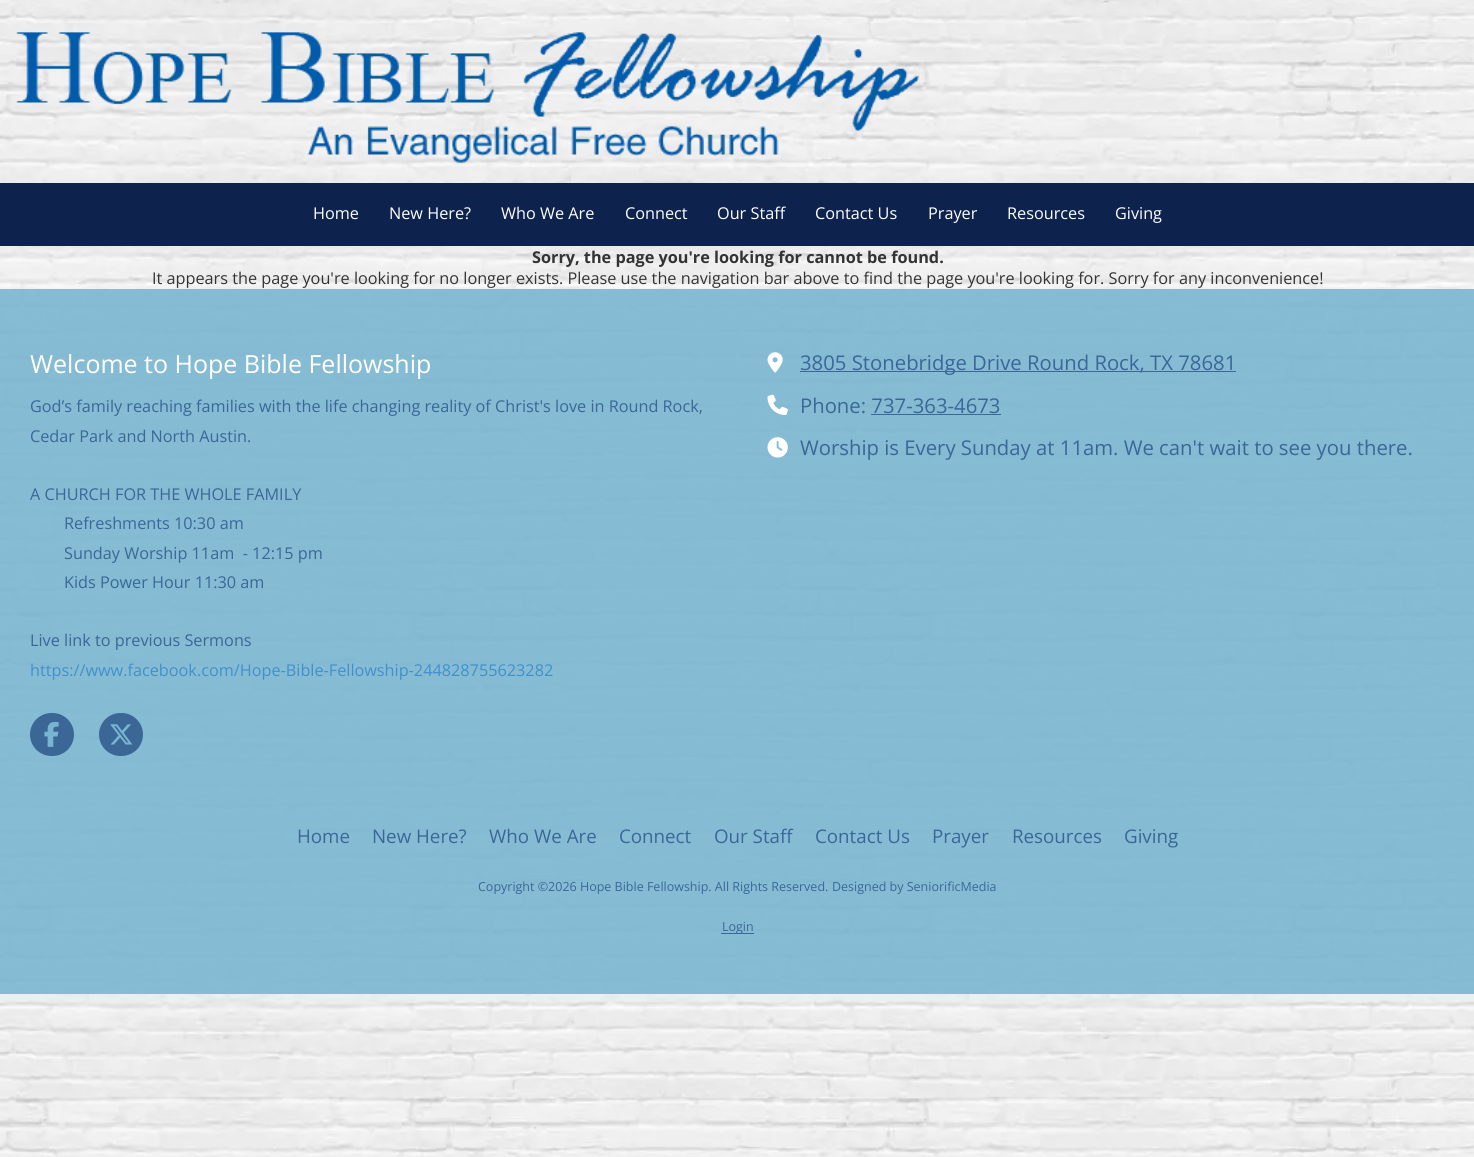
#include <cairo.h>
#include <math.h>
#include <stddef.h>


static void rgb(cairo_t *cr, int r, int g, int b)
{
	cairo_set_source_rgb(cr, r / 255.0, g / 255.0, b / 255.0);
}

static void face(cairo_t *cr, const char *family, double size, int italic, int bold)
{
	cairo_select_font_face(cr, family, italic ? CAIRO_FONT_SLANT_ITALIC : CAIRO_FONT_SLANT_NORMAL,
		bold ? CAIRO_FONT_WEIGHT_BOLD : CAIRO_FONT_WEIGHT_NORMAL);
	cairo_set_font_size(cr, size);
}

static void label(cairo_t *cr, double x, double y, const char *s)
{
	cairo_move_to(cr, x, y);
	cairo_show_text(cr, s);
}

static void rect(cairo_t *cr, double x, double y, double w, double h)
{
	cairo_rectangle(cr, x, y, w, h);
	cairo_fill(cr);
}

static void rrect(cairo_t *cr, double x, double y, double w, double h, double r)
{
	cairo_new_sub_path(cr);
	cairo_arc(cr, x + w - r, y + h - r, r, 0, M_PI / 2);
	cairo_arc(cr, x + r, y + h - r, r, M_PI / 2, M_PI);
	cairo_arc(cr, x + r, y + r, r, M_PI, 1.5 * M_PI);
	cairo_arc(cr, x + w - r, y + r, r, 1.5 * M_PI, 2 * M_PI);
	cairo_close_path(cr);
}

static void image(cairo_t *cr, const char *path, double x, double y, double w, double h)
{
	cairo_surface_t *image = cairo_image_surface_create_from_png(path);
	cairo_save(cr);
	cairo_set_source_surface(cr, image, x, y);
	cairo_rectangle(cr, x, y, w, h);
	cairo_fill(cr);
	cairo_restore(cr);
	cairo_surface_destroy(image);
}

static void draw(cairo_t *cr) {
	rgb(cr, 255, 255, 255);
	cairo_paint(cr);
	image(cr, "image0.png", 0, 0, 1474, 1157);
	image(cr, "image1.png", 16, 32, 903, 132);
	rgb(cr, 13, 35, 77);
	rect(cr, 0, 183, 1474, 63);
	face(cr, "Open Sans", 16.25, 0, 0);
	rgb(cr, 255, 255, 255);
	label(cr, 313, 219, "Home");
	label(cr, 389, 219, "New Here?");
	label(cr, 501, 219, "Who We Are");
	label(cr, 625, 219, "Connect");
	label(cr, 717, 219, "Our Staff");
	label(cr, 815, 219, "Contact Us");
	label(cr, 928, 219, "Prayer");
	label(cr, 1007, 219, "Resources");
	label(cr, 1115, 219, "Giving");
	face(cr, "Open Sans", 16.25, 0, 1);
	rgb(cr, 51, 51, 51);
	label(cr, 532, 263, "Sorry, the page you're looking for cannot be found.");
	face(cr, "Open Sans", 16.25, 0, 0);
	label(cr, 152, 284, "It appears the page you're looking for no longer exists. Please use the navigation bar above to find the page you're looking for. Sorry for any inconvenience!");
	cairo_set_source_rgba(cr, 0.475, 0.71, 0.82, 0.89);
	rect(cr, 0, 289, 1474, 705);
	face(cr, "Open Sans", 25, 0, 0);
	rgb(cr, 255, 255, 255);
	label(cr, 30, 373, "Welcome to Hope Bible Fellowship");
	face(cr, "Open Sans", 16.25, 0, 0);
	rgb(cr, 58, 103, 150);
	label(cr, 30, 412, "God’s family reaching families with the life changing reality of Christ's love in Round Rock,");
	label(cr, 30, 442, "Cedar Park and North Austin.");
	label(cr, 30, 500, "A CHURCH FOR THE WHOLE FAMILY");
	label(cr, 64, 529, "Refreshments 10:30 am");
	label(cr, 64, 559, "Sunday Worship 11am  - 12:15 pm");
	label(cr, 64, 588, "Kids Power Hour 11:30 am");
	label(cr, 30, 646, "Live link to previous Sermons");
	rgb(cr, 64, 144, 205);
	label(cr, 30, 676, "https://www.facebook.com/Hope-Bible-Fellowship-244828755623282");
	rgb(cr, 58, 103, 150);
	rrect(cr, 30, 713, 44, 43, 21.5);
	cairo_fill(cr);
	image(cr, "image2.png", 44, 721, 15, 26);
	rrect(cr, 99, 713, 44, 43, 21.5);
	cairo_fill(cr);
	image(cr, "image3.png", 110, 724, 23, 21);
	image(cr, "image4.png", 767, 352, 16, 21);
	rect(cr, 800, 371, 436, 1);
	face(cr, "Open Sans", 20.3, 0, 0);
	label(cr, 800, 370, "3805 Stonebridge Drive Round Rock, TX 78681");
	image(cr, "image5.png", 767, 394, 21, 21);
	label(cr, 800, 413, "Phone: 737-363-4673");
	rect(cr, 871, 414, 130, 1);
	image(cr, "image6.png", 767, 437, 21, 21);
	label(cr, 800, 455, "Worship is Every Sunday at 11am. We can't wait to see you there.");
	face(cr, "Open Sans", 18.75, 0, 0);
	label(cr, 297, 843, "Home");
	label(cr, 372, 843, "New Here?");
	label(cr, 489, 843, "Who We Are");
	label(cr, 619, 843, "Connect");
	label(cr, 714, 843, "Our Staff");
	label(cr, 815, 843, "Contact Us");
	label(cr, 932, 843, "Prayer");
	label(cr, 1012, 843, "Resources");
	label(cr, 1124, 843, "Giving");
	face(cr, "Open Sans", 12.5, 0, 0);
	label(cr, 478, 891, "Copyright ©2026 Hope Bible Fellowship. All Rights Reserved.");
	label(cr, 832, 891, "Designed by SeniorificMedia");
	rect(cr, 721, 933, 33, 1);
	label(cr, 722, 931, "Login");
}

int main(void) {
	cairo_surface_t *surface = cairo_image_surface_create(CAIRO_FORMAT_RGB24, 1474, 1157);
	cairo_t *cr = cairo_create(surface);
	cairo_font_options_t *options = cairo_font_options_create();
	cairo_font_options_set_hint_metrics(options, CAIRO_HINT_METRICS_OFF);
	cairo_font_options_set_hint_style(options, CAIRO_HINT_STYLE_NONE);
	cairo_set_font_options(cr, options);
	cairo_set_miter_limit(cr, 4);
	draw(cr);
	cairo_surface_write_to_png(surface, "render.png");
	cairo_font_options_destroy(options);
	cairo_destroy(cr);
	cairo_surface_destroy(surface);
	return 0;
}
